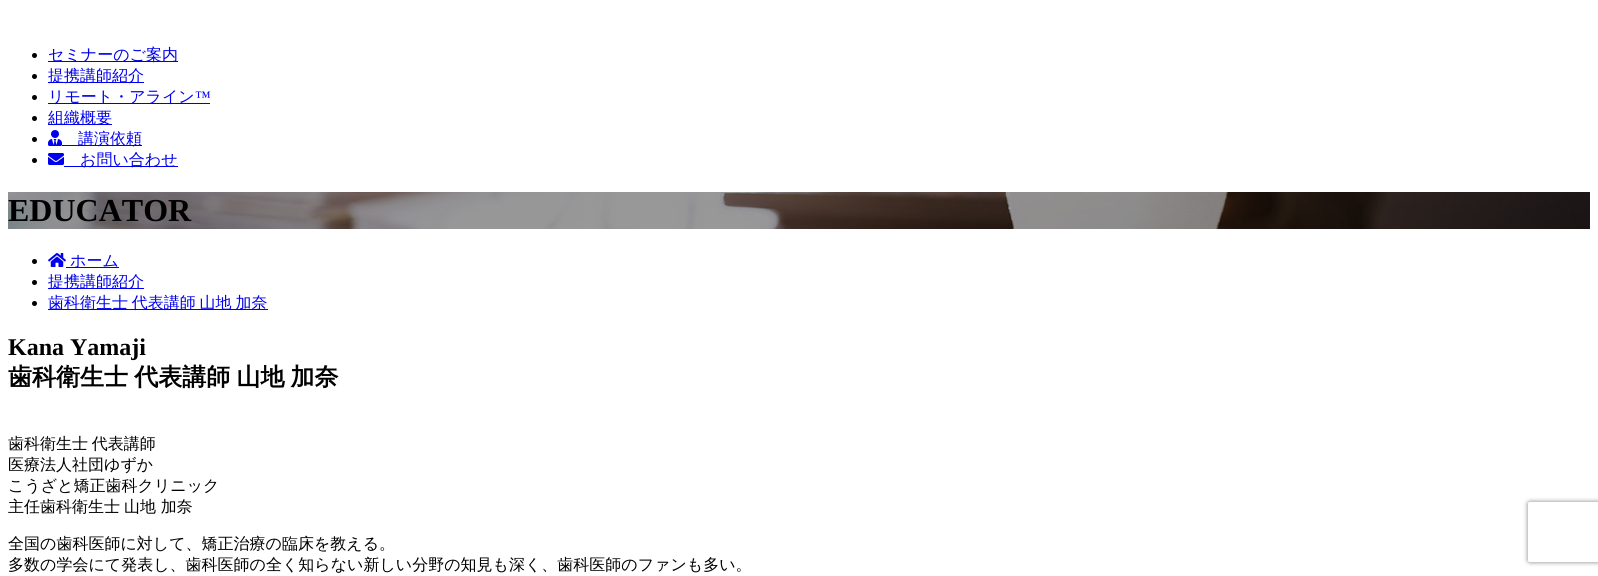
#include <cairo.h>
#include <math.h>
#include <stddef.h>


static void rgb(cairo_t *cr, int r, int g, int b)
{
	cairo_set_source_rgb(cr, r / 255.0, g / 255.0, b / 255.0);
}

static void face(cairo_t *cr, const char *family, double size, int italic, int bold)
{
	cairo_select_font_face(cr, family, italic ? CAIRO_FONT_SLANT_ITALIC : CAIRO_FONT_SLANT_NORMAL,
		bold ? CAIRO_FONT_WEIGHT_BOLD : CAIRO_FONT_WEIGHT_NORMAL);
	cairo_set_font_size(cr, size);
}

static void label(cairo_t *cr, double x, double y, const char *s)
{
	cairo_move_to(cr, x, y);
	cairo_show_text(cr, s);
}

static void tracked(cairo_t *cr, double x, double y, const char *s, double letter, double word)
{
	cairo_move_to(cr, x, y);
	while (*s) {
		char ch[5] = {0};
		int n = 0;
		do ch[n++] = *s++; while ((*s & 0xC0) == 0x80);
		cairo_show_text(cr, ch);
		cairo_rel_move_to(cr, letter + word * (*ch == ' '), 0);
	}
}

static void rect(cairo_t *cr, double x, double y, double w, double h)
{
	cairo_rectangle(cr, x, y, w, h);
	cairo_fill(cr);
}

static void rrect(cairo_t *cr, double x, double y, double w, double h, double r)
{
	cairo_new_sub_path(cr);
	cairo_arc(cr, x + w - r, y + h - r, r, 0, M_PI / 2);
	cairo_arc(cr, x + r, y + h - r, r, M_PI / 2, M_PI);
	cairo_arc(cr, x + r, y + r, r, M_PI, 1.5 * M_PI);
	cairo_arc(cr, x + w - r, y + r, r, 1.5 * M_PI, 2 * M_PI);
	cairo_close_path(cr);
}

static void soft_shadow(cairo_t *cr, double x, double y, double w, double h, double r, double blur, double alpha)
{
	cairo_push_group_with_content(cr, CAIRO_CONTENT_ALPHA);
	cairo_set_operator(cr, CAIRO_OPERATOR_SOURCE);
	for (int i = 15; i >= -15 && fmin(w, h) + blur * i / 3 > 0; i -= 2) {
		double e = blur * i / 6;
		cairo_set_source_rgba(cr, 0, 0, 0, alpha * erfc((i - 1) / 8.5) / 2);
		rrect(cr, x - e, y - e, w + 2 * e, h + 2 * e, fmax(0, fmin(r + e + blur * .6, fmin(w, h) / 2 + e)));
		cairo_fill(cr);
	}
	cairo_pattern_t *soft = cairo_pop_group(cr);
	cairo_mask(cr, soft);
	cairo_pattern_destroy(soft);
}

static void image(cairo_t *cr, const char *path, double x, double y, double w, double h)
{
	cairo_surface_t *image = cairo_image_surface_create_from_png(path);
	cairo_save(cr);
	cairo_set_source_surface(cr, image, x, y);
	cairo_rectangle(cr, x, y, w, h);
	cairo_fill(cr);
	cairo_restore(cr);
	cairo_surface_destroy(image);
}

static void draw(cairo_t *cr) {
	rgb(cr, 255, 255, 255);
	cairo_paint(cr);
	rgb(cr, 0, 0, 0);
	cairo_arc(cr, 34.5, 55.5, 2.5, 0, 2 * M_PI);
	cairo_fill(cr);
	rgb(cr, 0, 0, 238);
	rect(cr, 48, 61, 130, 1);
	face(cr, "WenQuanYi Zen Hei Medium", 16, 0, 0);
	label(cr, 48, 60, "セミナーのご案内");
	rgb(cr, 0, 0, 0);
	cairo_new_path(cr);
	cairo_arc(cr, 34.5, 76.5, 2.5, 0, 2 * M_PI);
	cairo_fill(cr);
	rgb(cr, 0, 0, 238);
	rect(cr, 48, 82, 96, 1);
	label(cr, 48, 81, "提携講師紹介");
	rgb(cr, 0, 0, 0);
	cairo_new_path(cr);
	cairo_arc(cr, 34.5, 97.5, 2.5, 0, 2 * M_PI);
	cairo_fill(cr);
	rgb(cr, 0, 0, 238);
	rect(cr, 48, 103, 162, 1);
	label(cr, 48, 102, "リモート・アライン");
	face(cr, "Liberation Serif", 16, 0, 0);
	label(cr, 195, 102, "™");
	rgb(cr, 0, 0, 0);
	cairo_new_path(cr);
	cairo_arc(cr, 34.5, 118.5, 2.5, 0, 2 * M_PI);
	cairo_fill(cr);
	rgb(cr, 0, 0, 238);
	rect(cr, 48, 124, 64, 1);
	face(cr, "WenQuanYi Zen Hei Medium", 16, 0, 0);
	label(cr, 48, 123, "組織概要");
	rgb(cr, 0, 0, 0);
	cairo_new_path(cr);
	cairo_arc(cr, 34.5, 139.5, 2.5, 0, 2 * M_PI);
	cairo_fill(cr);
	image(cr, "image0.png", 48, 130, 14, 16);
	rgb(cr, 0, 0, 238);
	rect(cr, 62, 145, 80, 1);
	label(cr, 78, 144, "講演依頼");
	rgb(cr, 0, 0, 0);
	cairo_new_path(cr);
	cairo_arc(cr, 34.5, 160.5, 2.5, 0, 2 * M_PI);
	cairo_fill(cr);
	image(cr, "image1.png", 48, 153, 16, 12);
	rgb(cr, 0, 0, 238);
	rect(cr, 64, 166, 114, 1);
	label(cr, 80, 165, "お問い合わせ");
	image(cr, "image2.png", 8, 192, 1582, 37);
	face(cr, "Liberation Serif", 32, 0, 1);
	rgb(cr, 0, 0, 0);
	label(cr, 8, 221, "EDUCATOR");
	cairo_new_path(cr);
	cairo_arc(cr, 34.5, 261.5, 2.5, 0, 2 * M_PI);
	cairo_fill(cr);
	image(cr, "image3.png", 48, 253, 18, 14);
	rgb(cr, 0, 0, 238);
	rect(cr, 66, 267, 53, 1);
	face(cr, "WenQuanYi Zen Hei Medium", 16, 0, 0);
	label(cr, 70, 266, "ホーム");
	rgb(cr, 0, 0, 0);
	cairo_new_path(cr);
	cairo_arc(cr, 34.5, 282.5, 2.5, 0, 2 * M_PI);
	cairo_fill(cr);
	rgb(cr, 0, 0, 238);
	rect(cr, 48, 288, 96, 1);
	label(cr, 48, 287, "提携講師紹介");
	rgb(cr, 0, 0, 0);
	cairo_new_path(cr);
	cairo_arc(cr, 34.5, 303.5, 2.5, 0, 2 * M_PI);
	cairo_fill(cr);
	rgb(cr, 0, 0, 238);
	rect(cr, 48, 309, 220, 1);
	tracked(cr, 48, 308, "歯科衛生士 代表講師 山地 加奈", 0, -1);
	face(cr, "Liberation Serif", 24, 0, 1);
	rgb(cr, 0, 0, 0);
	label(cr, 8, 355, "Kana Yamaji");
	face(cr, "WenQuanYi Zen Hei", 24, 0, 1);
	tracked(cr, 8, 385, "歯科衛生士 代表講師 山地 加奈", 0, -1);
	face(cr, "WenQuanYi Zen Hei Medium", 16, 0, 0);
	tracked(cr, 8, 449, "歯科衛生士 代表講師", 0, -1);
	label(cr, 8, 470, "医療法人社団ゆずか");
	label(cr, 8, 491, "こうざと矯正歯科クリニック");
	label(cr, 8, 512, "主任歯科衛生士");
	label(cr, 124, 512, "山地 加奈");
	label(cr, 8, 549, "全国の歯科医師に対して、矯正治療の臨床を教える。");
	label(cr, 8, 570, "多数の学会にて発表し、歯科医師の全く知らない新しい分野の知見も深く、歯科医師のファンも多い。");
	cairo_save(cr);
	cairo_set_fill_rule(cr, CAIRO_FILL_RULE_EVEN_ODD);
	cairo_new_path(cr);
	cairo_move_to(cr, 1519, 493);
	cairo_line_to(cr, 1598, 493);
	cairo_line_to(cr, 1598, 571);
	cairo_line_to(cr, 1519, 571);
	cairo_close_path(cr);
	cairo_move_to(cr, 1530, 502);
	cairo_line_to(cr, 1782, 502);
	cairo_curve_to(cr, 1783, 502, 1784, 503, 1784, 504);
	cairo_line_to(cr, 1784, 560);
	cairo_curve_to(cr, 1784, 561, 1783, 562, 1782, 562);
	cairo_line_to(cr, 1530, 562);
	cairo_curve_to(cr, 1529, 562, 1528, 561, 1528, 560);
	cairo_line_to(cr, 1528, 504);
	cairo_curve_to(cr, 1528, 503, 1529, 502, 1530, 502);
	cairo_close_path(cr);
	cairo_clip(cr);
	rgb(cr, 128, 128, 128);
	soft_shadow(cr, 1528, 502, 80, 60, 2, 2.5, 1);
	cairo_restore(cr);
}

int main(void) {
	cairo_surface_t *surface = cairo_image_surface_create(CAIRO_FORMAT_RGB24, 1598, 576);
	cairo_t *cr = cairo_create(surface);
	cairo_font_options_t *options = cairo_font_options_create();
	cairo_font_options_set_hint_metrics(options, CAIRO_HINT_METRICS_OFF);
	cairo_font_options_set_hint_style(options, CAIRO_HINT_STYLE_NONE);
	cairo_set_font_options(cr, options);
	cairo_set_miter_limit(cr, 4);
	draw(cr);
	cairo_surface_write_to_png(surface, "render.png");
	cairo_font_options_destroy(options);
	cairo_destroy(cr);
	cairo_surface_destroy(surface);
	return 0;
}
